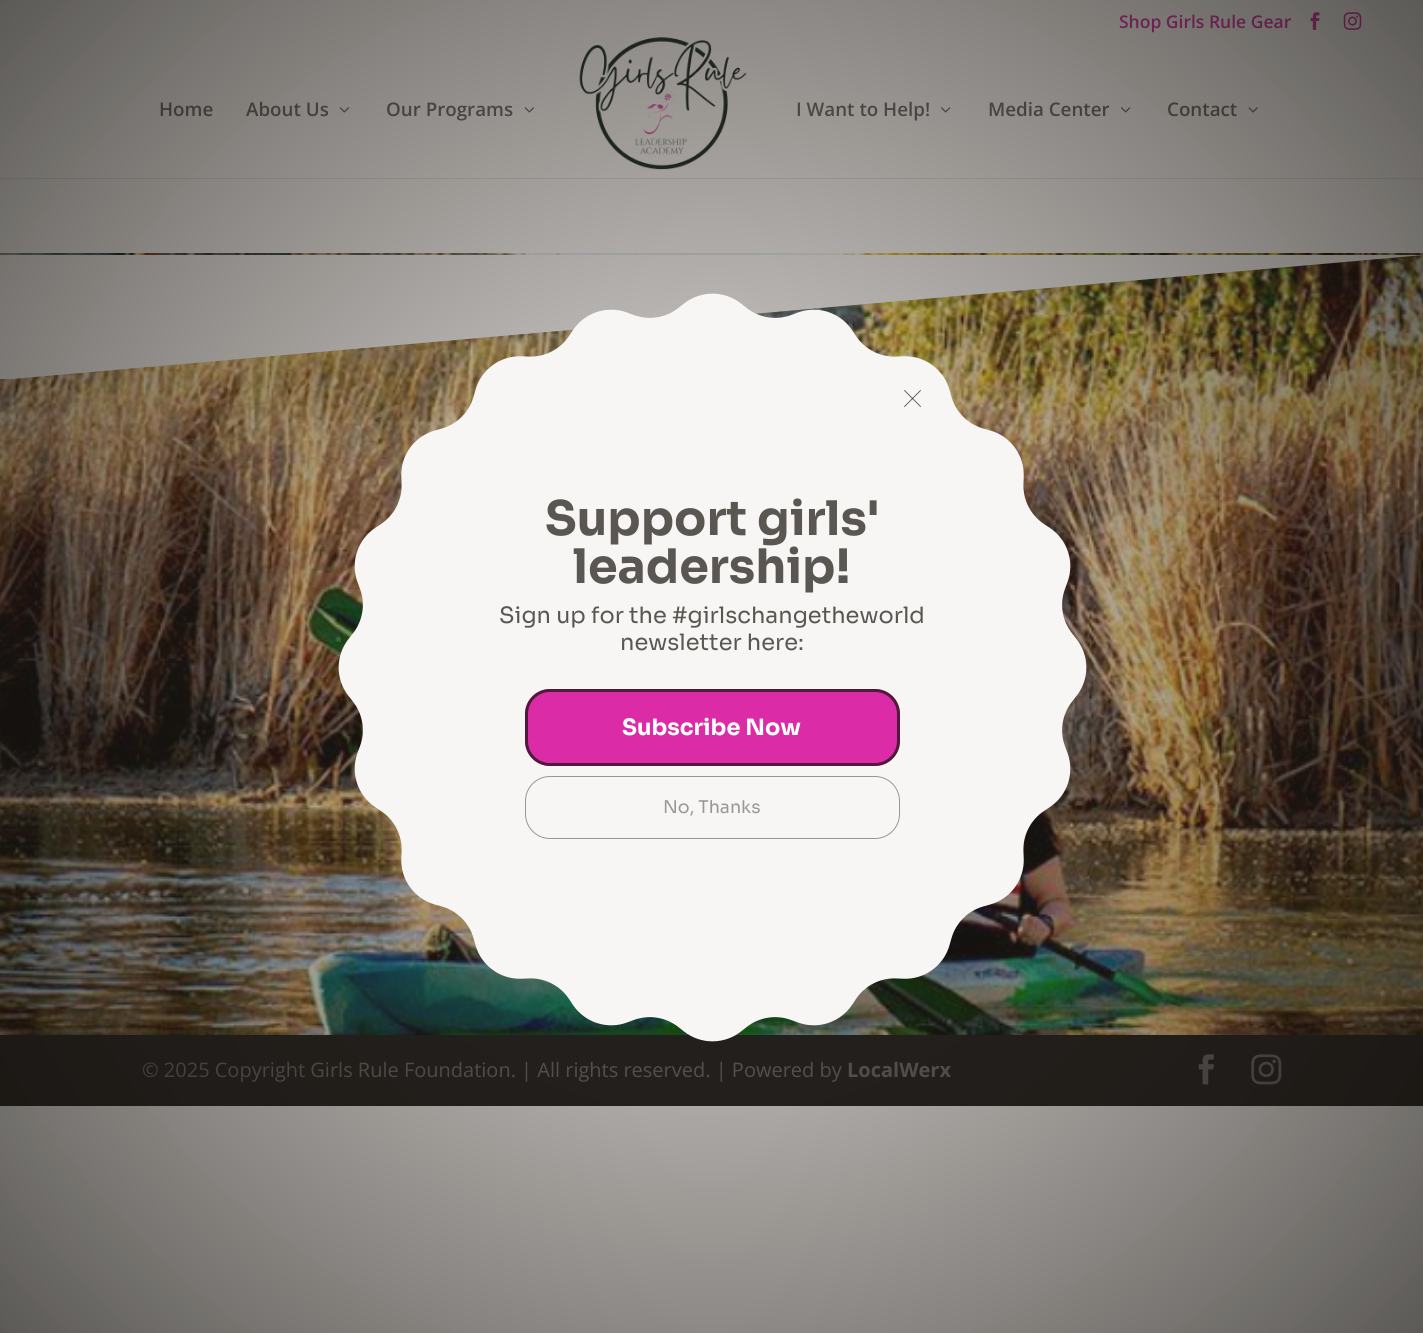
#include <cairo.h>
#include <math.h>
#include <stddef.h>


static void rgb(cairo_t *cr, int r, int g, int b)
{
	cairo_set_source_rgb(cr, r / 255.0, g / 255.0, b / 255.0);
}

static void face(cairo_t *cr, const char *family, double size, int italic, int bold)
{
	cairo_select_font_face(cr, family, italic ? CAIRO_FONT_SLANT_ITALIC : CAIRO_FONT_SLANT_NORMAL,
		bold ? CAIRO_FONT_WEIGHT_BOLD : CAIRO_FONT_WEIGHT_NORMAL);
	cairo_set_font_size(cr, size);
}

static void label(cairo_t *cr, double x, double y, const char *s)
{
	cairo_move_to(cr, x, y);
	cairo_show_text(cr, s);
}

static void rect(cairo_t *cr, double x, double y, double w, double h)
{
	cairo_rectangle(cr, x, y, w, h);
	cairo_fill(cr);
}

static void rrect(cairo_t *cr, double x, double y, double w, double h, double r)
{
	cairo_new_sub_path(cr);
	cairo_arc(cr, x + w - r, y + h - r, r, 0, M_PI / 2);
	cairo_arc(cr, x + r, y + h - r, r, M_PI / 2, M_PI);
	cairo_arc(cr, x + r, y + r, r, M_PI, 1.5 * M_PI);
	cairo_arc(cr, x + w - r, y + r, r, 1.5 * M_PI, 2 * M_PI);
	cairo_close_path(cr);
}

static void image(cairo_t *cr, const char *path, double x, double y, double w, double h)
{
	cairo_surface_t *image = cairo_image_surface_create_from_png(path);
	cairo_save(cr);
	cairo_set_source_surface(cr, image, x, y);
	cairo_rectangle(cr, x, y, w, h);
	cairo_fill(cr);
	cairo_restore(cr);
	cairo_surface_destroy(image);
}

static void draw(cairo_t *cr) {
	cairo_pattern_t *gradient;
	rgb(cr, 255, 255, 255);
	cairo_paint(cr);
	face(cr, "Open Sans SemiBold", 17.5, 0, 0);
	rgb(cr, 219, 43, 166);
	label(cr, 1119, 28, "Shop Girls Rule Gear");
	image(cr, "image0.png", 1310, 12, 10, 18);
	image(cr, "image1.png", 1343, 12, 19, 18);
	rgb(cr, 230, 230, 230);
	cairo_new_path(cr);
	cairo_move_to(cr, 0, 178);
	cairo_line_to(cr, 0, 179);
	cairo_line_to(cr, 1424, 179);
	cairo_line_to(cr, 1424, 45);
	cairo_line_to(cr, 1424, 178);
	cairo_close_path(cr);
	cairo_fill(cr);
	face(cr, "Open Sans SemiBold", 18.75, 0, 0);
	rgb(cr, 102, 102, 102);
	label(cr, 159, 116, "Home");
	label(cr, 246, 116, "About Us");
	image(cr, "image2.png", 339, 107, 10, 6);
	label(cr, 386, 116, "Our Programs");
	image(cr, "image2.png", 524, 107, 10, 6);
	image(cr, "image3.png", 579, 37, 168, 133);
	label(cr, 796, 116, "I Want to Help!");
	image(cr, "image4.png", 941, 107, 10, 6);
	label(cr, 988, 116, "Media Center");
	image(cr, "image4.png", 1121, 107, 10, 6);
	label(cr, 1167, 116, "Contact");
	image(cr, "image5.png", 1248, 107, 10, 6);
	image(cr, "image6.png", 0, 253, 1423, 782);
	cairo_save(cr);
	cairo_rectangle(cr, 0, 254, 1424, 125);
	cairo_clip(cr);
	rgb(cr, 255, 255, 255);
	cairo_new_path(cr);
	cairo_move_to(cr, 0, 380);
	cairo_line_to(cr, 0, 255);
	cairo_line_to(cr, 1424, 255);
	cairo_close_path(cr);
	cairo_fill(cr);
	cairo_restore(cr);
	rgb(cr, 23, 23, 23);
	rect(cr, 0, 1035, 1423, 71);
	face(cr, "Open Sans", 20, 0, 0);
	rgb(cr, 102, 102, 102);
	label(cr, 142, 1077, "© 2025 Copyright Girls Rule Foundation. | All rights reserved. | Powered by");
	face(cr, "Open Sans", 20, 0, 1);
	label(cr, 847, 1077, "LocalWerx");
	image(cr, "image7.png", 1198, 1054, 16, 31);
	image(cr, "image8.png", 1251, 1054, 31, 31);
	gradient = cairo_pattern_create_radial(712, 667, 0, 712, 667, 975);
	cairo_pattern_add_color_stop_rgba(gradient, 0, 0.29, 0.239, 0.204, 0.17);
	cairo_pattern_add_color_stop_rgba(gradient, 1, 0.086, 0.075, 0.055, 0.7);
	cairo_set_source(cr, gradient);
	cairo_pattern_destroy(gradient);
	rect(cr, 0, 0, 1423, 1333);
	image(cr, "image9.png", 338, 293, 749, 749);
	cairo_new_path(cr);
	cairo_move_to(cr, 904.5, 390.5);
	cairo_line_to(cr, 920.5, 406.5);
	rgb(cr, 90, 87, 83);
	cairo_set_line_width(cr, 0.9);
	cairo_set_line_cap(cr, CAIRO_LINE_CAP_ROUND);
	cairo_stroke(cr);
	cairo_new_path(cr);
	cairo_move_to(cr, 920.5, 390.5);
	cairo_line_to(cr, 904.5, 406.5);
	cairo_set_source_rgba(cr, 0.086, 0.075, 0.055, 0.7);
	cairo_stroke(cr);
	face(cr, "Sora", 47.5, 0, 1);
	rgb(cr, 90, 87, 83);
	label(cr, 545, 535, "Support girls'");
	label(cr, 573, 583, "leadership!");
	face(cr, "Sora", 22.5, 0, 0);
	label(cr, 499, 623, "Sign up for the #girlschangetheworld");
	label(cr, 620, 650, "newsletter here:");
	rgb(cr, 219, 43, 166);
	rrect(cr, 525, 689, 375, 77, 25);
	cairo_fill(cr);
	rrect(cr, 526.5, 690.5, 372, 74, 23.5);
	cairo_set_source_rgba(cr, 0.086, 0.075, 0.055, 0.7);
	cairo_set_line_width(cr, 3);
	cairo_set_line_cap(cr, CAIRO_LINE_CAP_BUTT);
	cairo_stroke(cr);
	face(cr, "Sora", 22.5, 0, 1);
	rgb(cr, 255, 255, 255);
	label(cr, 622, 735, "Subscribe Now");
	rrect(cr, 525.5, 776.5, 374, 62, 24.5);
	rgb(cr, 153, 151, 148);
	cairo_set_line_width(cr, 1);
	cairo_stroke(cr);
	face(cr, "Sora", 17.5, 0, 0);
	label(cr, 663, 813, "No, Thanks");
}

int main(void) {
	cairo_surface_t *surface = cairo_image_surface_create(CAIRO_FORMAT_RGB24, 1423, 1333);
	cairo_t *cr = cairo_create(surface);
	cairo_font_options_t *options = cairo_font_options_create();
	cairo_font_options_set_hint_metrics(options, CAIRO_HINT_METRICS_OFF);
	cairo_font_options_set_hint_style(options, CAIRO_HINT_STYLE_NONE);
	cairo_set_font_options(cr, options);
	cairo_set_miter_limit(cr, 4);
	draw(cr);
	cairo_surface_write_to_png(surface, "render.png");
	cairo_font_options_destroy(options);
	cairo_destroy(cr);
	cairo_surface_destroy(surface);
	return 0;
}
